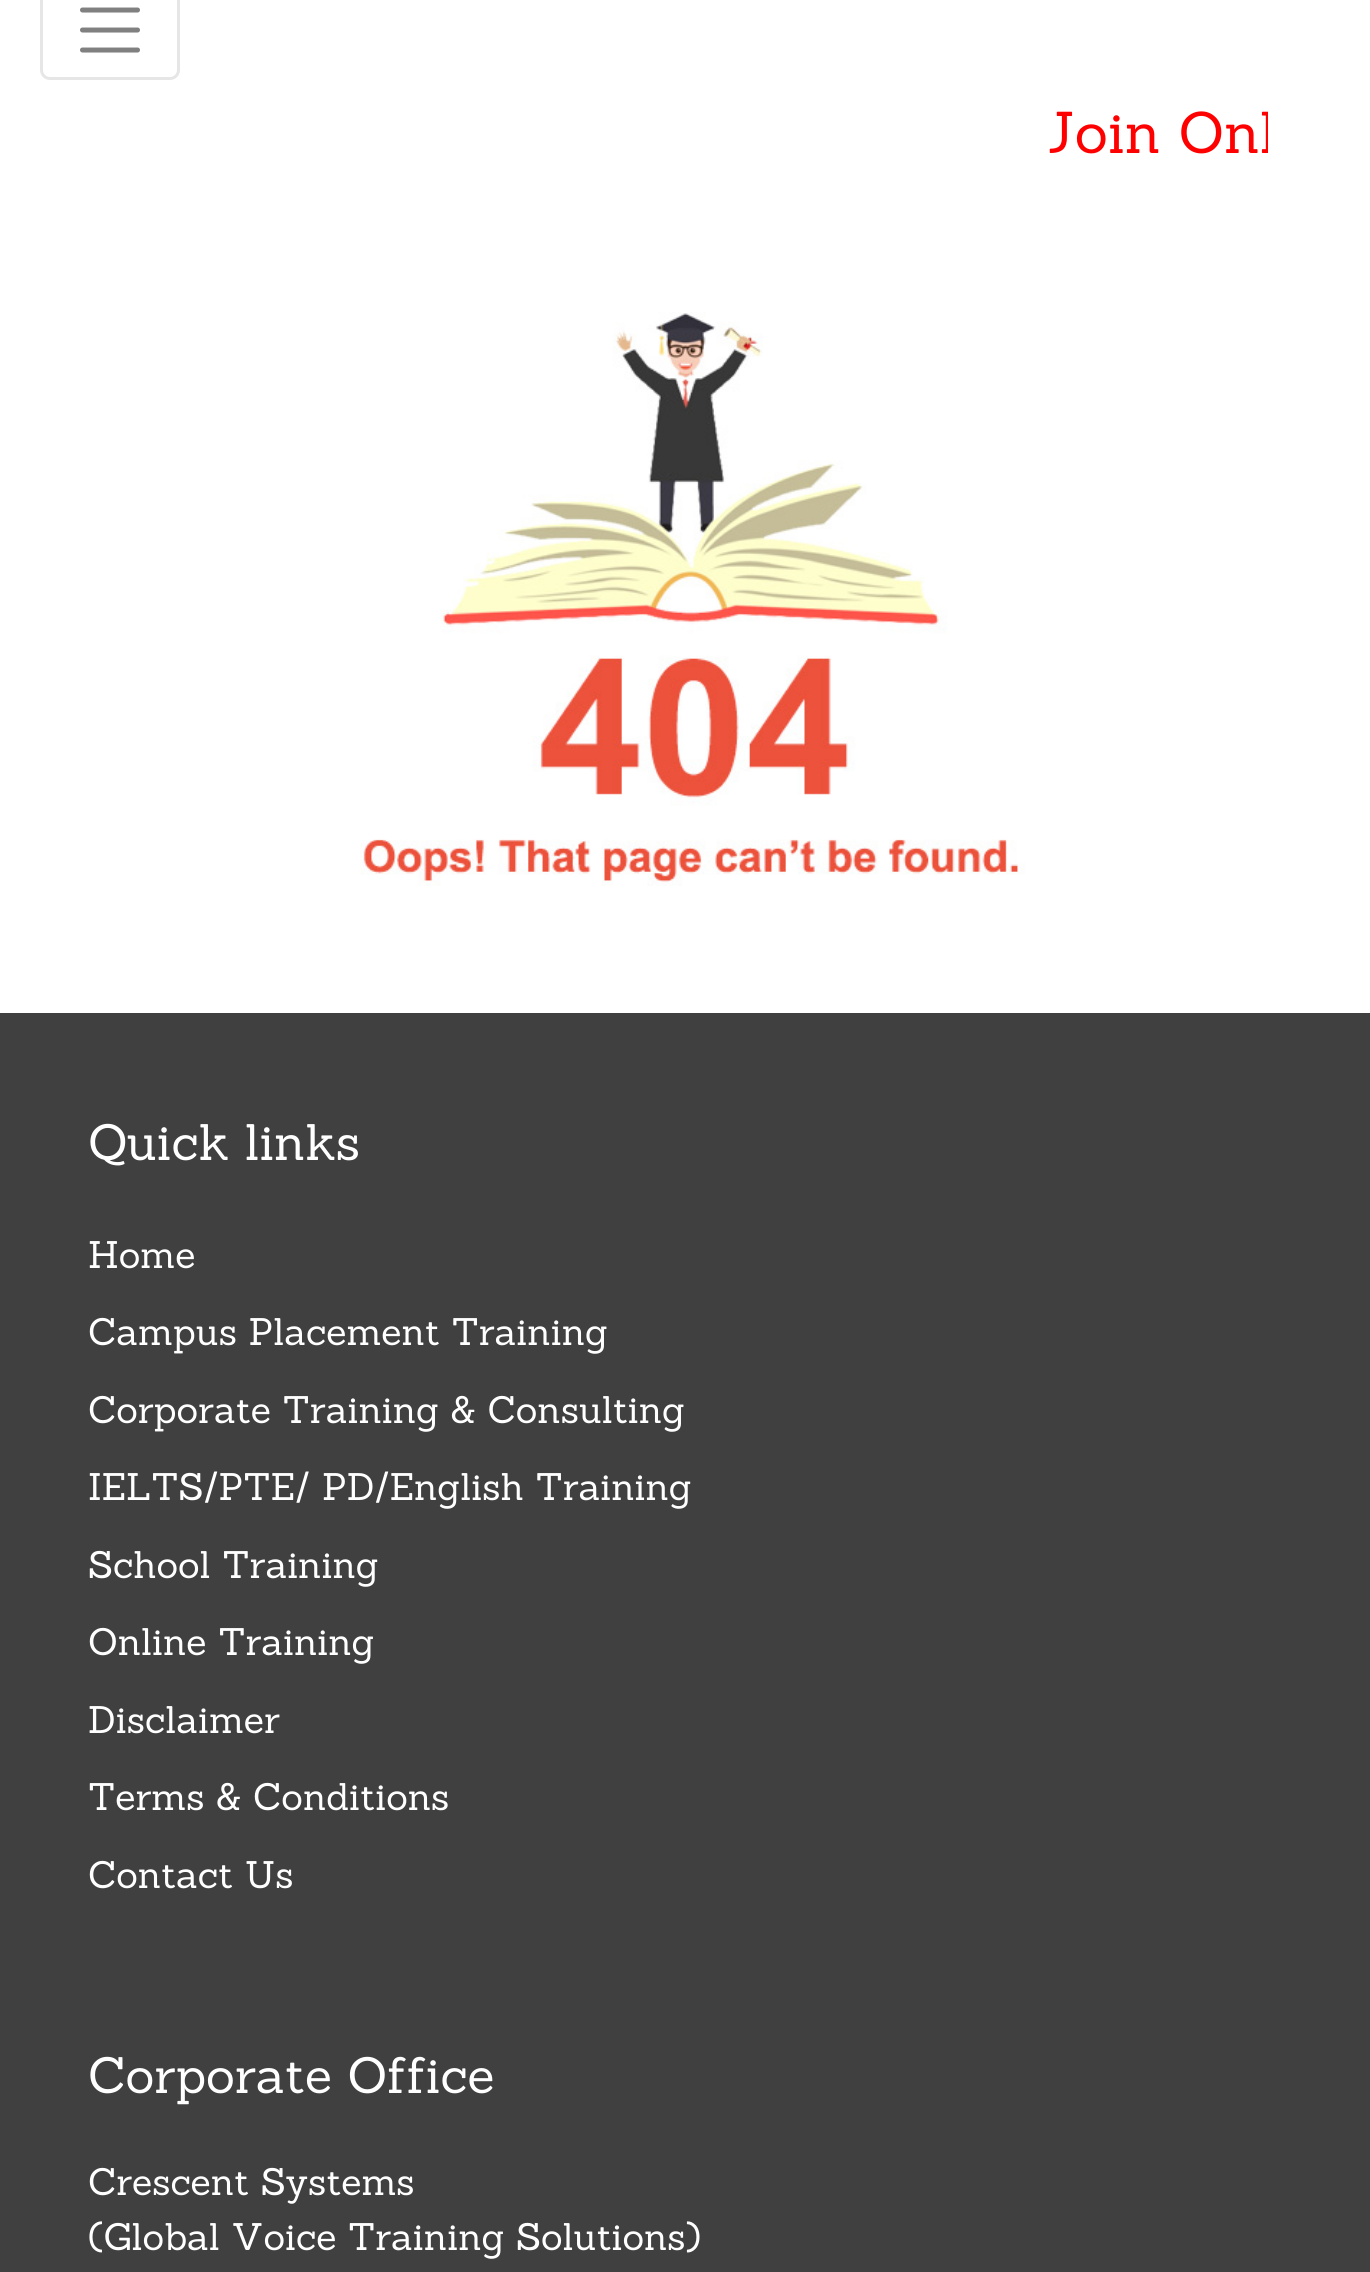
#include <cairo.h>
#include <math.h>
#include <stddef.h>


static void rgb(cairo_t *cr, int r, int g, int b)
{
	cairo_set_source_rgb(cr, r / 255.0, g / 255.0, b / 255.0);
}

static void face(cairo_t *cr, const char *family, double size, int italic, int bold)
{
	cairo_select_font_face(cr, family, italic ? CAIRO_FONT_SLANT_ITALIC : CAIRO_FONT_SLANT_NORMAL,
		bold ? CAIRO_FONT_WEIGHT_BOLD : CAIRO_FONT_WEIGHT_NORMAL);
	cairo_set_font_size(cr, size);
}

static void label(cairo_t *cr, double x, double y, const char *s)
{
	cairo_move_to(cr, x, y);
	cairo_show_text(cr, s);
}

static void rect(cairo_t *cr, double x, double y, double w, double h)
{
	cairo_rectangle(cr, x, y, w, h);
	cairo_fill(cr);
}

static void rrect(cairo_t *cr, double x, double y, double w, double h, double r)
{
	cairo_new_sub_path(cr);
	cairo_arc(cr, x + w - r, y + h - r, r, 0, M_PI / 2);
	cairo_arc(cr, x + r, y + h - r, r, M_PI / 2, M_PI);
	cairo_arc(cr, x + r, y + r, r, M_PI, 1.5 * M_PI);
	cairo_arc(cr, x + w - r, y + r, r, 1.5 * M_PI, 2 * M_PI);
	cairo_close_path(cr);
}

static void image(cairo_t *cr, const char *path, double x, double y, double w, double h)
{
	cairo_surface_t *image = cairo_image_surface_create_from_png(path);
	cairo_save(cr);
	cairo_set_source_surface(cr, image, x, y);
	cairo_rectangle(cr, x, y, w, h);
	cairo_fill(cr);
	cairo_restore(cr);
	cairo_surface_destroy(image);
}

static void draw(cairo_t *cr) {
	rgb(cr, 255, 255, 255);
	cairo_paint(cr);
	rrect(cr, 41.5, -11.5, 137, 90, 8.5);
	rgb(cr, 230, 230, 230);
	cairo_set_line_width(cr, 3);
	cairo_stroke(cr);
	cairo_new_path(cr);
	cairo_move_to(cr, 82.5, 10);
	cairo_line_to(cr, 137.5, 10);
	cairo_move_to(cr, 82.5, 30);
	cairo_line_to(cr, 137.5, 30);
	cairo_move_to(cr, 82.5, 50);
	cairo_line_to(cr, 137.5, 50);
	rgb(cr, 128, 128, 128);
	cairo_set_line_width(cr, 5);
	cairo_set_line_cap(cr, CAIRO_LINE_CAP_ROUND);
	cairo_stroke(cr);
	cairo_save(cr);
	cairo_rectangle(cr, 103, 100, 1165, 65);
	cairo_clip(cr);
	face(cr, "Sanchez", 57.5, 0, 0);
	rgb(cr, 255, 0, 0);
	label(cr, 1047, 153, "Join Onl");
	cairo_restore(cr);
	image(cr, "image0.png", 360, 312, 665, 574);
	rgb(cr, 64, 64, 64);
	rect(cr, 0, 1013, 1370, 1259);
	face(cr, "Sanchez", 50, 0, 0);
	rgb(cr, 255, 255, 255);
	label(cr, 88, 1160, "Quick links");
	face(cr, "Sanchez", 37.5, 0, 0);
	label(cr, 88, 1268, "Home");
	label(cr, 88, 1345, "Campus Placement Training");
	label(cr, 88, 1423, "Corporate Training & Consulting");
	label(cr, 88, 1500, "IELTS/PTE/ PD/English Training");
	label(cr, 88, 1578, "School Training");
	label(cr, 88, 1655, "Online Training");
	label(cr, 88, 1733, "Disclaimer");
	label(cr, 88, 1810, "Terms & Conditions");
	label(cr, 88, 1888, "Contact Us");
	face(cr, "Sanchez", 50, 0, 0);
	label(cr, 88, 2093, "Corporate Office");
	face(cr, "Sanchez", 37.5, 0, 0);
	label(cr, 88, 2195, "Crescent Systems");
	label(cr, 88, 2250, "(Global Voice Training Solutions)");
}

int main(void) {
	cairo_surface_t *surface = cairo_image_surface_create(CAIRO_FORMAT_RGB24, 1370, 2272);
	cairo_t *cr = cairo_create(surface);
	cairo_font_options_t *options = cairo_font_options_create();
	cairo_font_options_set_hint_metrics(options, CAIRO_HINT_METRICS_OFF);
	cairo_font_options_set_hint_style(options, CAIRO_HINT_STYLE_NONE);
	cairo_set_font_options(cr, options);
	cairo_set_miter_limit(cr, 4);
	draw(cr);
	cairo_surface_write_to_png(surface, "render.png");
	cairo_font_options_destroy(options);
	cairo_destroy(cr);
	cairo_surface_destroy(surface);
	return 0;
}
